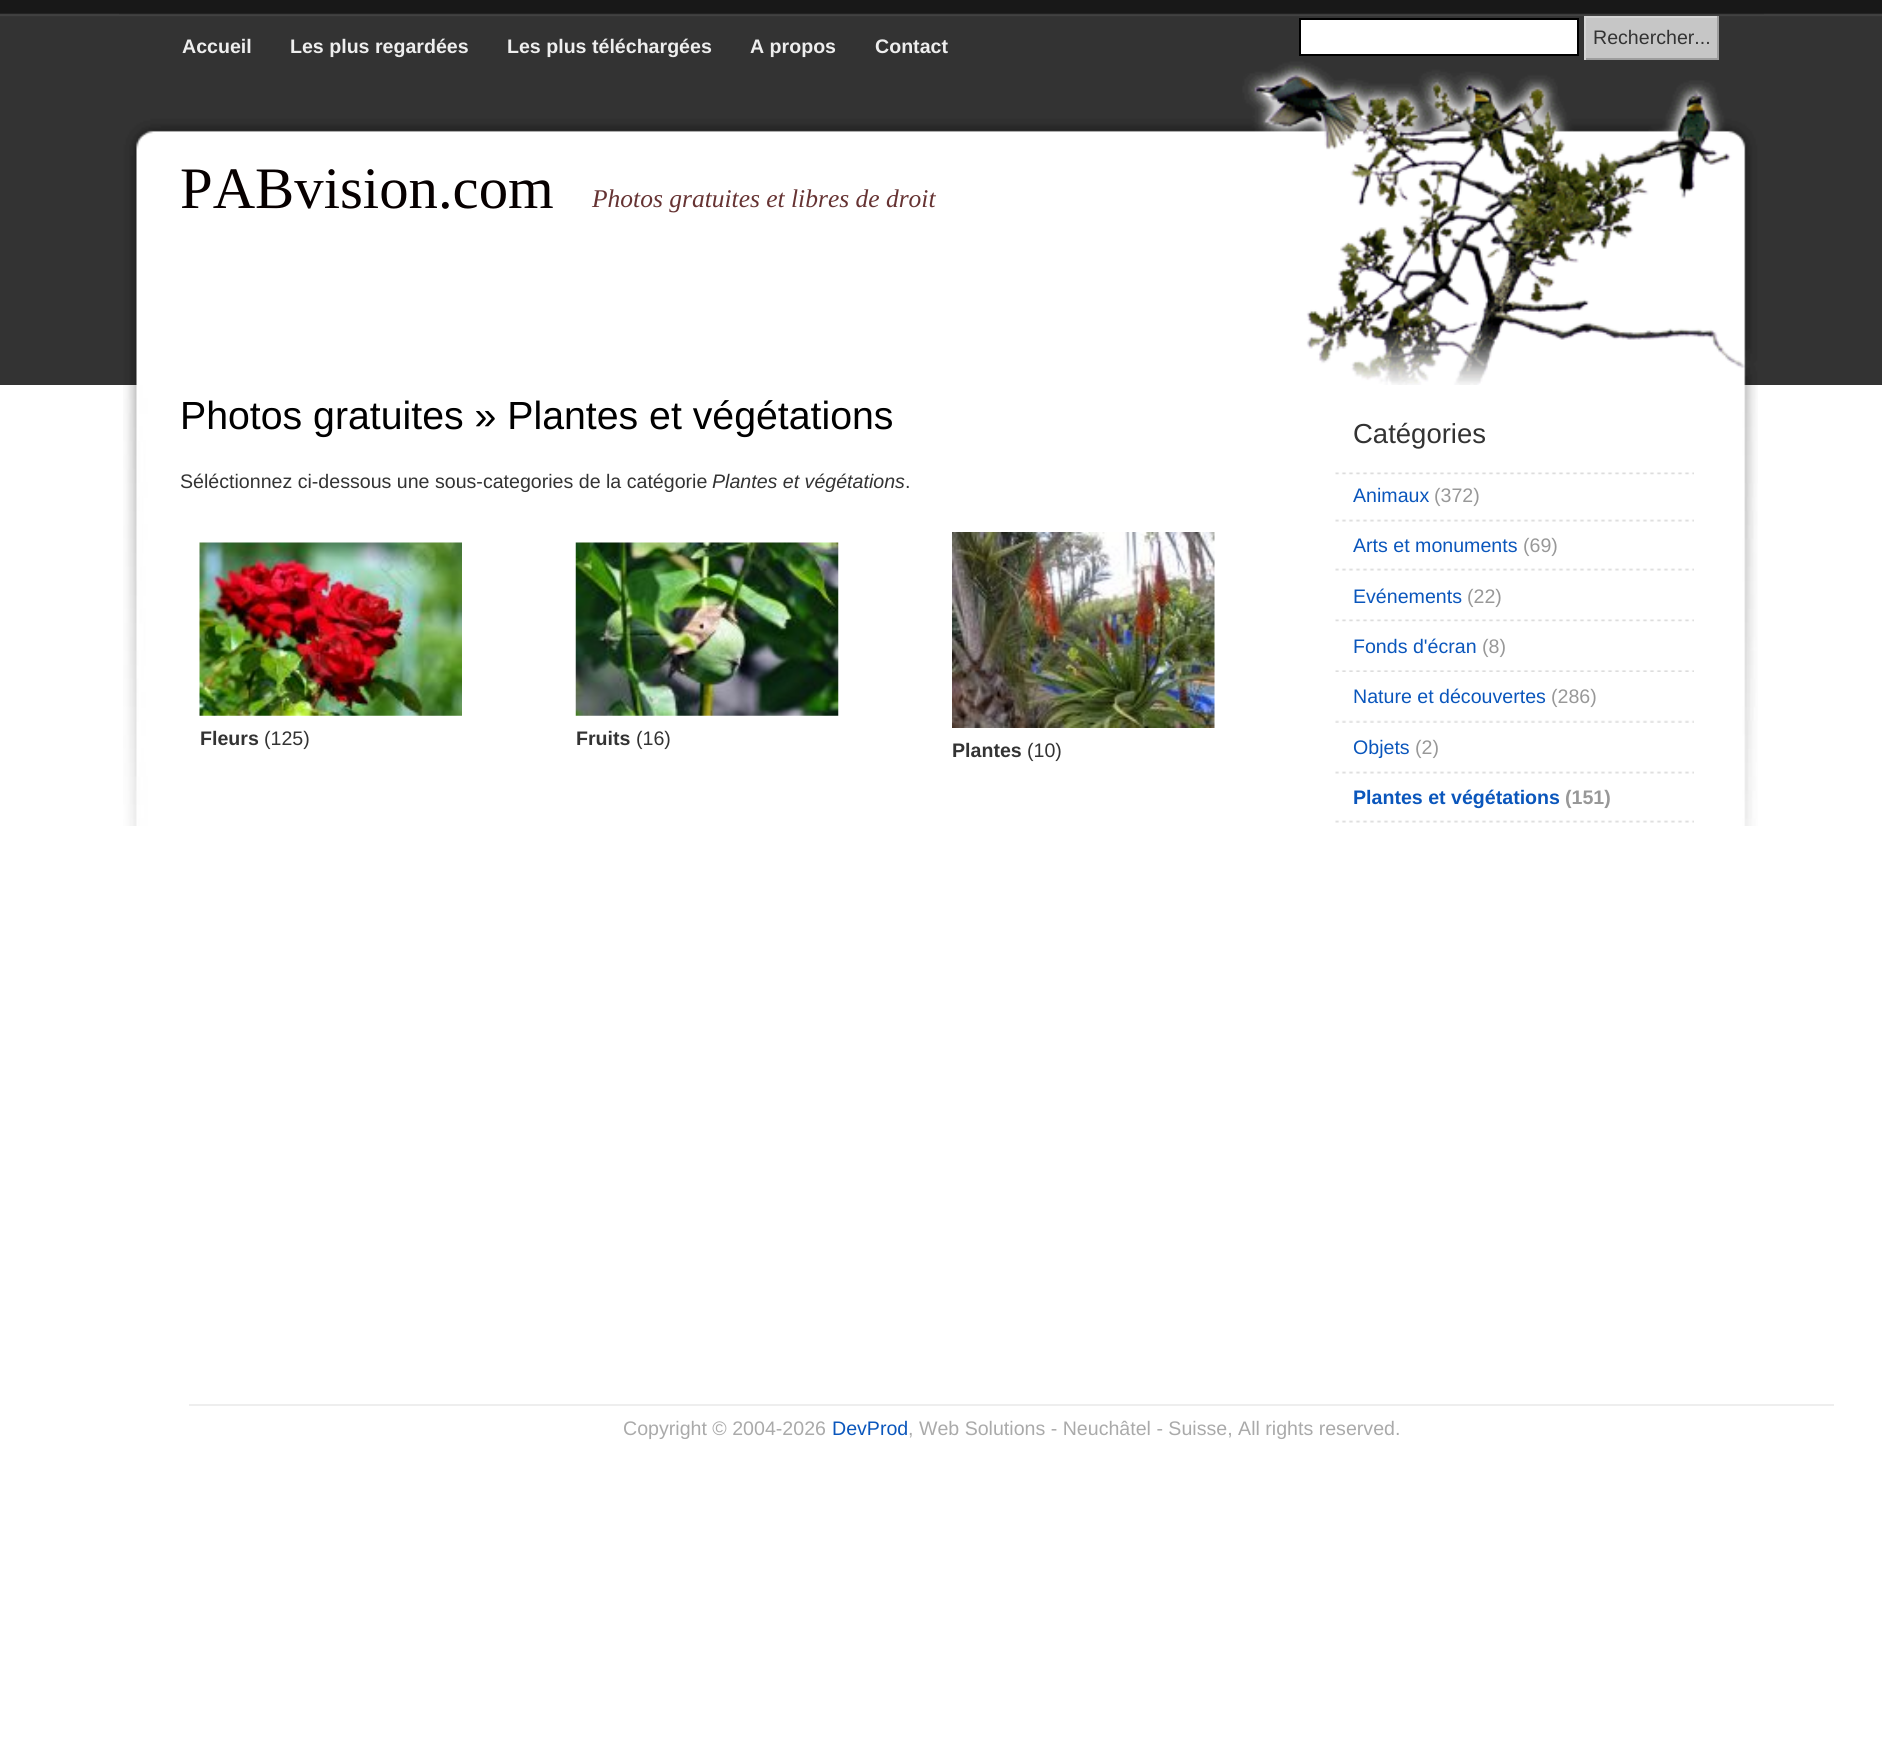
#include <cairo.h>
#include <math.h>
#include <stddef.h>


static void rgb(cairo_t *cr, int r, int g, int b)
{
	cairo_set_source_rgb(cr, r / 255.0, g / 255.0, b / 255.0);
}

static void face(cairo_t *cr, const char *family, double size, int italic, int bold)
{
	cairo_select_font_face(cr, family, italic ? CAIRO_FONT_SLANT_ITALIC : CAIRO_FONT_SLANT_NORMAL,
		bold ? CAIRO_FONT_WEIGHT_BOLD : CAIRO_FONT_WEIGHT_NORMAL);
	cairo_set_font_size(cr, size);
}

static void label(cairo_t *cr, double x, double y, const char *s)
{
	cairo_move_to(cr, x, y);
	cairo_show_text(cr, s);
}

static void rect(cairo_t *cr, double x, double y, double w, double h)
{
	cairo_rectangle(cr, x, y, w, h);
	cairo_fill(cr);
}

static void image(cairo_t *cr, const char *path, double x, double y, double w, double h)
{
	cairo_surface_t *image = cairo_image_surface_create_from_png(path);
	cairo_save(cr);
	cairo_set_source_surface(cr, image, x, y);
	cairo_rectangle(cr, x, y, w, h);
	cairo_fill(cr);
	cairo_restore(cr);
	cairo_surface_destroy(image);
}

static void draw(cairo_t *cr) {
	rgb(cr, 255, 255, 255);
	cairo_paint(cr);
	image(cr, "image0.png", 0, 0, 1882, 385);
	image(cr, "image1.png", 119, 0, 1645, 385);
	face(cr, "Liberation Sans", 19.6, 0, 1);
	rgb(cr, 238, 238, 238);
	label(cr, 182, 53, "Accueil");
	label(cr, 290, 53, "Les plus regardées");
	label(cr, 507, 53, "Les plus téléchargées");
	label(cr, 750, 53, "A propos");
	label(cr, 875, 53, "Contact");
	rgb(cr, 255, 255, 255);
	cairo_rectangle(cr, 1300, 19, 278, 36);
	cairo_fill_preserve(cr);
	rgb(cr, 0, 0, 0);
	cairo_stroke(cr);
	rgb(cr, 198, 198, 198);
	rect(cr, 1586, 18, 131, 40);
	rgb(cr, 212, 212, 212);
	rect(cr, 1584, 16, 135, 2);
	rgb(cr, 157, 157, 157);
	rect(cr, 1717, 16, 2, 44);
	rect(cr, 1584, 58, 135, 2);
	rgb(cr, 212, 212, 212);
	rect(cr, 1584, 16, 2, 44);
	face(cr, "Liberation Sans", 19.6, 0, 0);
	rgb(cr, 51, 51, 51);
	label(cr, 1593, 44, "Rechercher...");
	face(cr, "Liberation Serif", 58.75, 0, 0);
	rgb(cr, 7, 0, 0);
	label(cr, 180, 208, "PABvision.com");
	face(cr, "Liberation Serif", 25.5, 1, 0);
	rgb(cr, 102, 51, 51);
	label(cr, 592, 207, "Photos gratuites et libres de droit");
	image(cr, "image2.png", 123, 385, 1635, 441);
	face(cr, "Liberation Sans", 39.25, 0, 0);
	rgb(cr, 0, 0, 0);
	label(cr, 180, 429, "Photos gratuites » Plantes et végétations");
	face(cr, "Liberation Sans", 19.6, 0, 0);
	rgb(cr, 51, 51, 51);
	label(cr, 180, 488, "Séléctionnez ci-dessous une sous-categories de la catégorie");
	face(cr, "Liberation Sans", 19.6, 1, 0);
	label(cr, 712, 488, "Plantes et végétations");
	face(cr, "Liberation Sans", 19.6, 0, 0);
	label(cr, 905, 488, ".");
	image(cr, "image3.png", 199, 542, 263, 174);
	face(cr, "Liberation Sans", 19.6, 0, 1);
	label(cr, 200, 745, "Fleurs");
	face(cr, "Liberation Sans", 19.6, 0, 0);
	label(cr, 264, 745, "(125)");
	image(cr, "image4.png", 575, 542, 264, 174);
	face(cr, "Liberation Sans", 19.6, 0, 1);
	label(cr, 576, 745, "Fruits");
	face(cr, "Liberation Sans", 19.6, 0, 0);
	label(cr, 636, 745, "(16)");
	image(cr, "image5.png", 952, 532, 263, 196);
	face(cr, "Liberation Sans", 19.6, 0, 1);
	label(cr, 952, 757, "Plantes");
	face(cr, "Liberation Sans", 19.6, 0, 0);
	label(cr, 1027, 757, "(10)");
	face(cr, "Liberation Sans", 27.5, 0, 0);
	label(cr, 1353, 443, "Catégories");
	image(cr, "image6.png", 1335, 472, 359, 3);
	image(cr, "image7.png", 1335, 519, 359, 3);
	face(cr, "Liberation Sans", 19.6, 0, 0);
	rgb(cr, 10, 86, 188);
	label(cr, 1353, 502, "Animaux");
	rgb(cr, 152, 152, 152);
	label(cr, 1434, 502, "(372)");
	image(cr, "image7.png", 1335, 568, 359, 3);
	rgb(cr, 10, 86, 188);
	label(cr, 1353, 552, "Arts et monuments");
	rgb(cr, 152, 152, 152);
	label(cr, 1523, 552, "(69)");
	image(cr, "image6.png", 1335, 619, 359, 3);
	rgb(cr, 10, 86, 188);
	label(cr, 1353, 603, "Evénements");
	rgb(cr, 152, 152, 152);
	label(cr, 1467, 603, "(22)");
	image(cr, "image8.png", 1335, 670, 359, 2);
	rgb(cr, 10, 86, 188);
	label(cr, 1353, 653, "Fonds d'écran");
	rgb(cr, 152, 152, 152);
	label(cr, 1482, 653, "(8)");
	image(cr, "image9.png", 1335, 720, 359, 3);
	rgb(cr, 10, 86, 188);
	label(cr, 1353, 703, "Nature et découvertes");
	rgb(cr, 152, 152, 152);
	label(cr, 1551, 703, "(286)");
	image(cr, "image7.png", 1335, 771, 359, 3);
	rgb(cr, 10, 86, 188);
	label(cr, 1353, 754, "Objets");
	rgb(cr, 152, 152, 152);
	label(cr, 1415, 754, "(2)");
	image(cr, "image7.png", 1335, 820, 359, 3);
	face(cr, "Liberation Sans", 19.6, 0, 1);
	rgb(cr, 10, 86, 188);
	label(cr, 1353, 804, "Plantes et végétations");
	rgb(cr, 152, 152, 152);
	label(cr, 1565, 804, "(151)");
	rgb(cr, 238, 238, 238);
	rect(cr, 189, 1404, 1645, 2);
	face(cr, "Liberation Sans", 19.6, 0, 0);
	rgb(cr, 170, 170, 170);
	label(cr, 623, 1435, "Copyright © 2004-2026");
	rgb(cr, 10, 86, 188);
	label(cr, 832, 1435, "DevProd");
	rgb(cr, 170, 170, 170);
	label(cr, 908, 1435, ", Web Solutions - Neuchâtel - Suisse, All rights reserved.");
}

int main(void) {
	cairo_surface_t *surface = cairo_image_surface_create(CAIRO_FORMAT_RGB24, 1882, 1761);
	cairo_t *cr = cairo_create(surface);
	cairo_font_options_t *options = cairo_font_options_create();
	cairo_font_options_set_hint_metrics(options, CAIRO_HINT_METRICS_OFF);
	cairo_font_options_set_hint_style(options, CAIRO_HINT_STYLE_NONE);
	cairo_set_font_options(cr, options);
	cairo_set_miter_limit(cr, 4);
	draw(cr);
	cairo_surface_write_to_png(surface, "render.png");
	cairo_font_options_destroy(options);
	cairo_destroy(cr);
	cairo_surface_destroy(surface);
	return 0;
}
